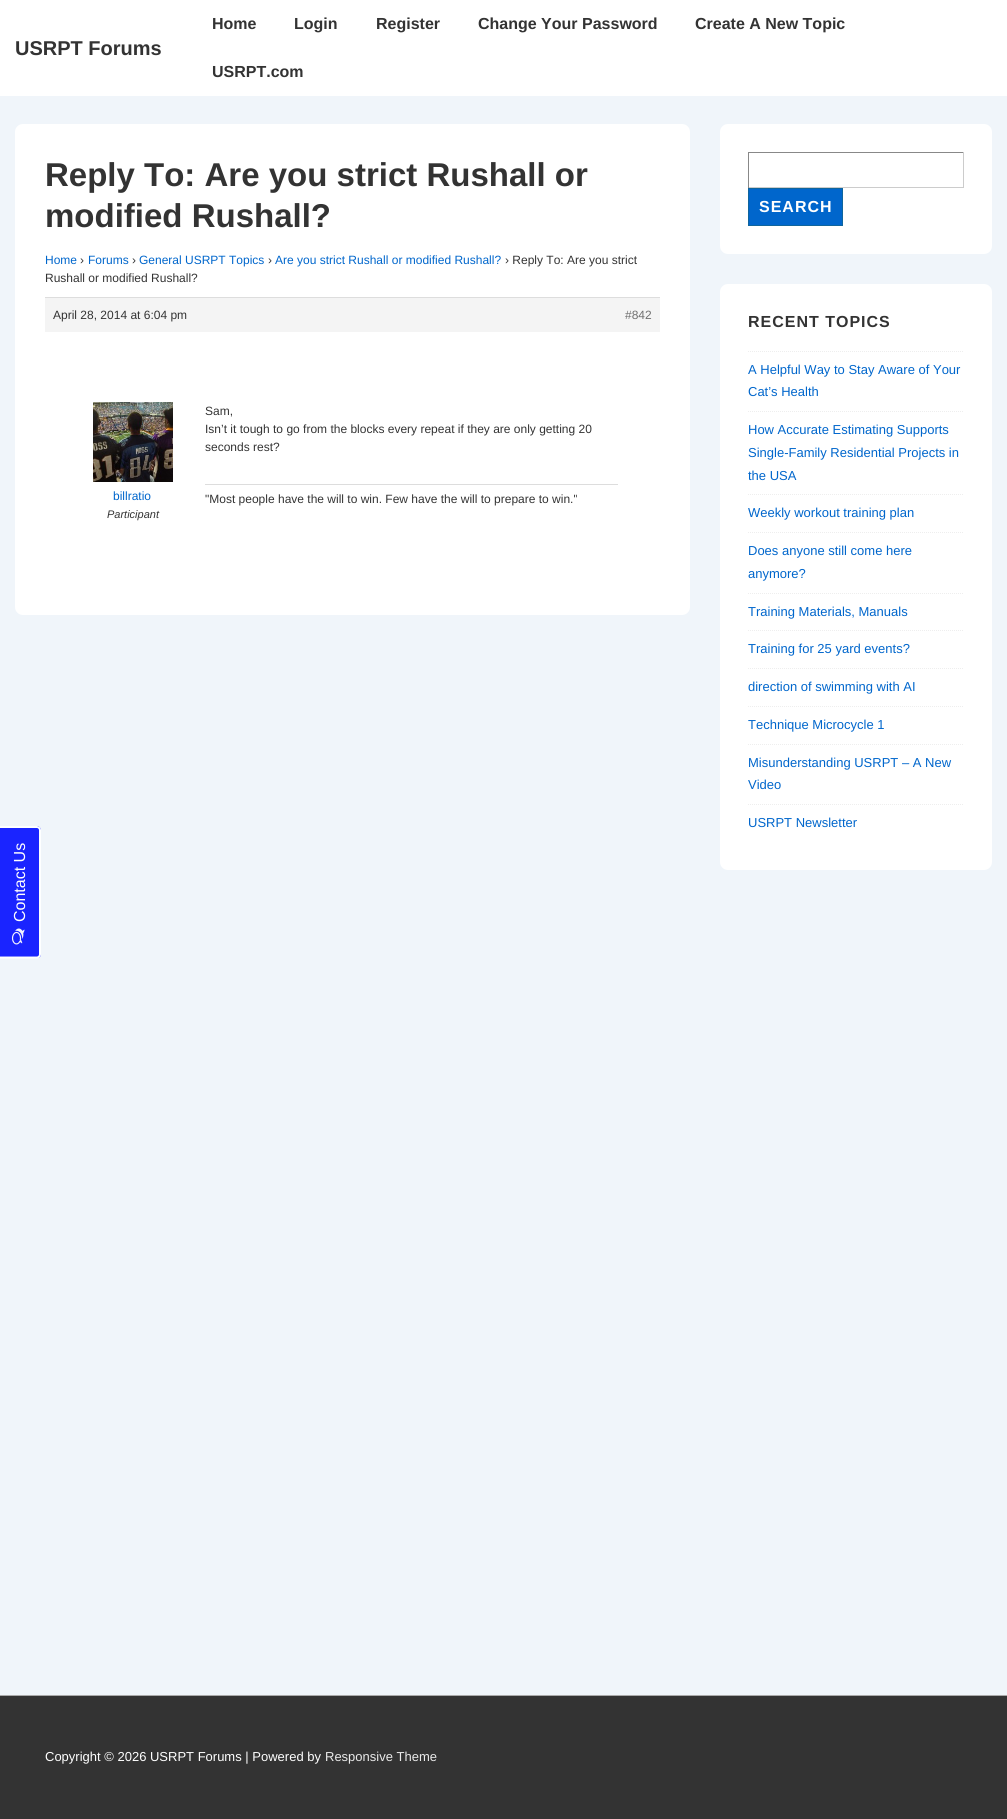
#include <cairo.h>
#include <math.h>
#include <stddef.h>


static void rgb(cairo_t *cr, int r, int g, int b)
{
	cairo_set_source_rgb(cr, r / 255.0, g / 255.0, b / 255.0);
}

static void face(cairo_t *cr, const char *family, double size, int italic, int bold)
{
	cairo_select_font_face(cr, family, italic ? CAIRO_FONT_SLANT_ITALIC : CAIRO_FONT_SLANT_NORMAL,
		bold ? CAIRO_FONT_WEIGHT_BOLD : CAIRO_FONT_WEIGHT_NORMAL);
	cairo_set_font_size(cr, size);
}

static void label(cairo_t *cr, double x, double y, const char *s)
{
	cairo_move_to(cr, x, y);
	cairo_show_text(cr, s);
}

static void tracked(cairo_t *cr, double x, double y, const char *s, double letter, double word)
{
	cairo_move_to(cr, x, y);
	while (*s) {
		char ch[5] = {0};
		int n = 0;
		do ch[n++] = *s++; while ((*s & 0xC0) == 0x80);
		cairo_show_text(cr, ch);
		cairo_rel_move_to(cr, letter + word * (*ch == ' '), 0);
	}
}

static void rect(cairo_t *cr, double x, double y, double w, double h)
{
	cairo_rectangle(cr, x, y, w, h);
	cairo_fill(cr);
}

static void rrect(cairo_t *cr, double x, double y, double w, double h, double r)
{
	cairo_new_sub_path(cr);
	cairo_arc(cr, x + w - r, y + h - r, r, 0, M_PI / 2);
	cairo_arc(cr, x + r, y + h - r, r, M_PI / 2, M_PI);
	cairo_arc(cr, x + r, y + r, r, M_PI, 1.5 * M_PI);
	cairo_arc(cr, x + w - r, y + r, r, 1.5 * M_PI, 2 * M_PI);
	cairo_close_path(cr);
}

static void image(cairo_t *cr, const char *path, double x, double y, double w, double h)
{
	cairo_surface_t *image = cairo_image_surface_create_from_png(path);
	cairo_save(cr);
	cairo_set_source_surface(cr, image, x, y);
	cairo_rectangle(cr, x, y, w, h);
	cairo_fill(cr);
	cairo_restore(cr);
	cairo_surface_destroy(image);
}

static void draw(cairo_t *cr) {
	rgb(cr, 240, 245, 250);
	cairo_paint(cr);
	rgb(cr, 255, 255, 255);
	rect(cr, 0, 0, 1007, 96);
	face(cr, "Liberation Sans", 20, 0, 1);
	rgb(cr, 51, 51, 51);
	label(cr, 15, 55, "USRPT Forums");
	face(cr, "Liberation Sans", 16, 0, 1);
	label(cr, 212, 29, "Home");
	label(cr, 294, 29, "Login");
	label(cr, 376, 29, "Register");
	label(cr, 478, 29, "Change Your Password");
	label(cr, 695, 29, "Create A New Topic");
	label(cr, 212, 77, "USRPT.com");
	rgb(cr, 255, 255, 255);
	rrect(cr, 15, 124, 675, 491, 8);
	cairo_fill(cr);
	face(cr, "Liberation Sans", 33, 0, 1);
	rgb(cr, 51, 51, 51);
	label(cr, 45, 186, "Reply To: Are you strict Rushall or");
	label(cr, 45, 227, "modified Rushall?");
	face(cr, "Liberation Sans", 12, 0, 0);
	rgb(cr, 0, 102, 204);
	label(cr, 45, 264, "Home");
	rgb(cr, 51, 51, 51);
	label(cr, 80, 264, "›");
	rgb(cr, 0, 102, 204);
	label(cr, 88, 264, "Forums");
	rgb(cr, 51, 51, 51);
	label(cr, 132, 264, "›");
	rgb(cr, 0, 102, 204);
	label(cr, 139, 264, "General USRPT Topics");
	rgb(cr, 51, 51, 51);
	label(cr, 268, 264, "›");
	rgb(cr, 0, 102, 204);
	label(cr, 275, 264, "Are you strict Rushall or modified Rushall?");
	rgb(cr, 51, 51, 51);
	label(cr, 505, 264, "› Reply To: Are you strict");
	label(cr, 45, 282, "Rushall or modified Rushall?");
	rgb(cr, 244, 244, 244);
	rect(cr, 45, 298, 615, 34);
	rgb(cr, 221, 221, 221);
	rect(cr, 45, 297, 615, 1);
	rgb(cr, 51, 51, 51);
	label(cr, 53, 319, "April 28, 2014 at 6:04 pm");
	rgb(cr, 112, 112, 112);
	label(cr, 625, 319, "#842");
	image(cr, "image0.png", 93, 402, 80, 80);
	rgb(cr, 0, 102, 204);
	label(cr, 113, 500, "billratio");
	face(cr, "Liberation Sans", 11, 1, 0);
	rgb(cr, 51, 51, 51);
	label(cr, 107, 518, "Participant");
	face(cr, "Liberation Sans", 12, 0, 0);
	label(cr, 205, 415, "Sam,");
	label(cr, 205, 433, "Isn’t it tough to go from the blocks every repeat if they are only getting 20");
	label(cr, 205, 451, "seconds rest?");
	rgb(cr, 221, 221, 221);
	rect(cr, 205, 484, 413, 1);
	rgb(cr, 51, 51, 51);
	label(cr, 205, 503, "\"Most people have the will to win. Few have the will to prepare to win.\"");
	rgb(cr, 255, 255, 255);
	rrect(cr, 720, 124, 272, 130, 8);
	cairo_fill(cr);
	rgb(cr, 136, 136, 136);
	rect(cr, 748, 152, 216, 1);
	rgb(cr, 204, 204, 204);
	rect(cr, 963, 152, 1, 36);
	rect(cr, 748, 187, 216, 1);
	rgb(cr, 136, 136, 136);
	rect(cr, 748, 152, 1, 36);
	rgb(cr, 0, 102, 204);
	cairo_rectangle(cr, 748.5, 188.5, 94, 37);
	cairo_fill_preserve(cr);
	rgb(cr, 16, 101, 156);
	cairo_set_line_width(cr, 1);
	cairo_stroke(cr);
	face(cr, "Liberation Sans", 16, 0, 1);
	rgb(cr, 255, 255, 255);
	tracked(cr, 759, 212, "SEARCH", 1, 0);
	rrect(cr, 720, 284, 272, 586, 8);
	cairo_fill(cr);
	rgb(cr, 51, 51, 51);
	tracked(cr, 748, 327, "RECENT TOPICS", 1, 0);
	cairo_new_path(cr);
	cairo_move_to(cr, 748, 351.5);
	cairo_line_to(cr, 964, 351.5);
	rgb(cr, 238, 238, 238);
	cairo_set_dash(cr, (double[]){1, 1}, 2, 0);
	cairo_stroke(cr);
	face(cr, "Liberation Sans", 13, 0, 0);
	rgb(cr, 0, 102, 204);
	label(cr, 748, 374, "A Helpful Way to Stay Aware of Your");
	label(cr, 748, 396, "Cat’s Health");
	cairo_new_path(cr);
	cairo_move_to(cr, 748, 411.5);
	cairo_line_to(cr, 964, 411.5);
	rgb(cr, 238, 238, 238);
	cairo_stroke(cr);
	rgb(cr, 0, 102, 204);
	label(cr, 748, 434, "How Accurate Estimating Supports");
	label(cr, 748, 457, "Single-Family Residential Projects in");
	label(cr, 748, 480, "the USA");
	cairo_new_path(cr);
	cairo_move_to(cr, 748, 494.5);
	cairo_line_to(cr, 964, 494.5);
	rgb(cr, 238, 238, 238);
	cairo_stroke(cr);
	rgb(cr, 0, 102, 204);
	label(cr, 748, 517, "Weekly workout training plan");
	cairo_new_path(cr);
	cairo_move_to(cr, 748, 532.5);
	cairo_line_to(cr, 964, 532.5);
	rgb(cr, 238, 238, 238);
	cairo_stroke(cr);
	rgb(cr, 0, 102, 204);
	label(cr, 748, 555, "Does anyone still come here");
	label(cr, 748, 578, "anymore?");
	cairo_new_path(cr);
	cairo_move_to(cr, 748, 593.5);
	cairo_line_to(cr, 964, 593.5);
	rgb(cr, 238, 238, 238);
	cairo_stroke(cr);
	rgb(cr, 0, 102, 204);
	label(cr, 748, 616, "Training Materials, Manuals");
	cairo_new_path(cr);
	cairo_move_to(cr, 748, 630.5);
	cairo_line_to(cr, 964, 630.5);
	rgb(cr, 238, 238, 238);
	cairo_stroke(cr);
	rgb(cr, 0, 102, 204);
	label(cr, 748, 653, "Training for 25 yard events?");
	cairo_new_path(cr);
	cairo_move_to(cr, 748, 668.5);
	cairo_line_to(cr, 964, 668.5);
	rgb(cr, 238, 238, 238);
	cairo_stroke(cr);
	rgb(cr, 0, 102, 204);
	label(cr, 748, 691, "direction of swimming with AI");
	cairo_new_path(cr);
	cairo_move_to(cr, 748, 706.5);
	cairo_line_to(cr, 964, 706.5);
	rgb(cr, 238, 238, 238);
	cairo_stroke(cr);
	rgb(cr, 0, 102, 204);
	label(cr, 748, 729, "Technique Microcycle 1");
	cairo_new_path(cr);
	cairo_move_to(cr, 748, 744.5);
	cairo_line_to(cr, 964, 744.5);
	rgb(cr, 238, 238, 238);
	cairo_stroke(cr);
	rgb(cr, 0, 102, 204);
	label(cr, 748, 767, "Misunderstanding USRPT – A New");
	label(cr, 748, 789, "Video");
	cairo_new_path(cr);
	cairo_move_to(cr, 748, 804.5);
	cairo_line_to(cr, 964, 804.5);
	rgb(cr, 238, 238, 238);
	cairo_stroke(cr);
	rgb(cr, 0, 102, 204);
	label(cr, 748, 827, "USRPT Newsletter");
	rgb(cr, 51, 51, 51);
	rect(cr, 0, 1696, 1007, 123);
	rgb(cr, 170, 170, 170);
	rect(cr, 0, 1695, 1007, 1);
	rgb(cr, 255, 255, 255);
	label(cr, 45, 1761, "Copyright © 2026 USRPT Forums | Powered by");
	rgb(cr, 234, 234, 234);
	label(cr, 325, 1761, "Responsive Theme");
	rgb(cr, 26, 36, 255);
	cairo_new_path(cr);
	cairo_move_to(cr, -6, 954);
	cairo_line_to(cr, -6, 830);
	cairo_curve_to(cr, -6, 828, -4, 826, -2, 826);
	cairo_line_to(cr, 37, 826);
	cairo_curve_to(cr, 39, 826, 41, 828, 41, 830);
	cairo_line_to(cr, 41, 954);
	cairo_curve_to(cr, 41, 957, 39, 958, 37, 958);
	cairo_line_to(cr, -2, 958);
	cairo_curve_to(cr, -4, 958, -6, 957, -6, 954);
	cairo_close_path(cr);
	cairo_fill(cr);
	cairo_new_path(cr);
	cairo_move_to(cr, -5, 954.5);
	cairo_line_to(cr, -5, 830);
	cairo_curve_to(cr, -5, 828.5, -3.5, 827, -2, 827);
	cairo_line_to(cr, 37, 827);
	cairo_curve_to(cr, 38.5, 827, 40, 828.5, 40, 830);
	cairo_line_to(cr, 40, 954.5);
	cairo_curve_to(cr, 40, 956, 38.5, 957.5, 37, 957.5);
	cairo_line_to(cr, -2, 957.5);
	cairo_curve_to(cr, -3.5, 957.5, -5, 956, -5, 954.5);
	cairo_close_path(cr);
	rgb(cr, 254, 255, 255);
	cairo_set_line_width(cr, 2);
	cairo_set_dash(cr, NULL, 0, 0);
	cairo_stroke(cr);
	face(cr, "Liberation Sans", 16, 0, 0);
	rgb(cr, 255, 255, 255);
	cairo_save(cr);
	cairo_translate(cr, 25, 922);
	cairo_rotate(cr, -90 * M_PI / 180);
	label(cr, 0, 0, "Contact Us");
	cairo_restore(cr);
	image(cr, "image1.png", 11, 928, 14, 17);
}

int main(void) {
	cairo_surface_t *surface = cairo_image_surface_create(CAIRO_FORMAT_RGB24, 1007, 1819);
	cairo_t *cr = cairo_create(surface);
	cairo_font_options_t *options = cairo_font_options_create();
	cairo_font_options_set_hint_metrics(options, CAIRO_HINT_METRICS_OFF);
	cairo_font_options_set_hint_style(options, CAIRO_HINT_STYLE_NONE);
	cairo_set_font_options(cr, options);
	cairo_set_miter_limit(cr, 4);
	draw(cr);
	cairo_surface_write_to_png(surface, "render.png");
	cairo_font_options_destroy(options);
	cairo_destroy(cr);
	cairo_surface_destroy(surface);
	return 0;
}
